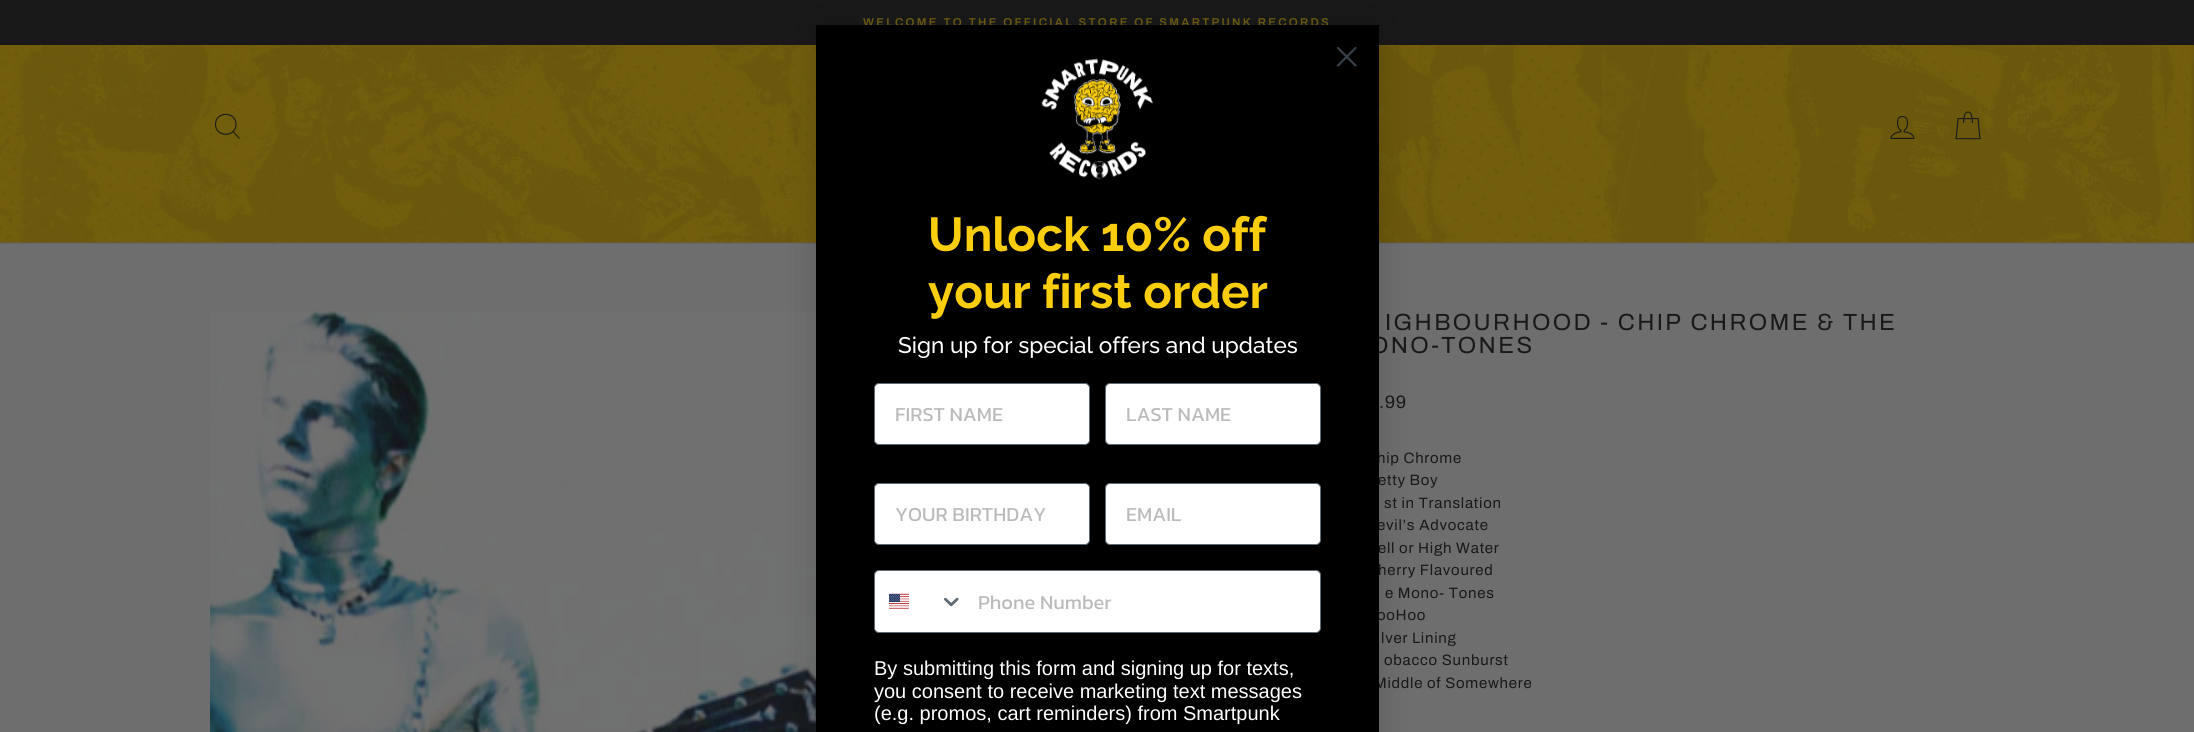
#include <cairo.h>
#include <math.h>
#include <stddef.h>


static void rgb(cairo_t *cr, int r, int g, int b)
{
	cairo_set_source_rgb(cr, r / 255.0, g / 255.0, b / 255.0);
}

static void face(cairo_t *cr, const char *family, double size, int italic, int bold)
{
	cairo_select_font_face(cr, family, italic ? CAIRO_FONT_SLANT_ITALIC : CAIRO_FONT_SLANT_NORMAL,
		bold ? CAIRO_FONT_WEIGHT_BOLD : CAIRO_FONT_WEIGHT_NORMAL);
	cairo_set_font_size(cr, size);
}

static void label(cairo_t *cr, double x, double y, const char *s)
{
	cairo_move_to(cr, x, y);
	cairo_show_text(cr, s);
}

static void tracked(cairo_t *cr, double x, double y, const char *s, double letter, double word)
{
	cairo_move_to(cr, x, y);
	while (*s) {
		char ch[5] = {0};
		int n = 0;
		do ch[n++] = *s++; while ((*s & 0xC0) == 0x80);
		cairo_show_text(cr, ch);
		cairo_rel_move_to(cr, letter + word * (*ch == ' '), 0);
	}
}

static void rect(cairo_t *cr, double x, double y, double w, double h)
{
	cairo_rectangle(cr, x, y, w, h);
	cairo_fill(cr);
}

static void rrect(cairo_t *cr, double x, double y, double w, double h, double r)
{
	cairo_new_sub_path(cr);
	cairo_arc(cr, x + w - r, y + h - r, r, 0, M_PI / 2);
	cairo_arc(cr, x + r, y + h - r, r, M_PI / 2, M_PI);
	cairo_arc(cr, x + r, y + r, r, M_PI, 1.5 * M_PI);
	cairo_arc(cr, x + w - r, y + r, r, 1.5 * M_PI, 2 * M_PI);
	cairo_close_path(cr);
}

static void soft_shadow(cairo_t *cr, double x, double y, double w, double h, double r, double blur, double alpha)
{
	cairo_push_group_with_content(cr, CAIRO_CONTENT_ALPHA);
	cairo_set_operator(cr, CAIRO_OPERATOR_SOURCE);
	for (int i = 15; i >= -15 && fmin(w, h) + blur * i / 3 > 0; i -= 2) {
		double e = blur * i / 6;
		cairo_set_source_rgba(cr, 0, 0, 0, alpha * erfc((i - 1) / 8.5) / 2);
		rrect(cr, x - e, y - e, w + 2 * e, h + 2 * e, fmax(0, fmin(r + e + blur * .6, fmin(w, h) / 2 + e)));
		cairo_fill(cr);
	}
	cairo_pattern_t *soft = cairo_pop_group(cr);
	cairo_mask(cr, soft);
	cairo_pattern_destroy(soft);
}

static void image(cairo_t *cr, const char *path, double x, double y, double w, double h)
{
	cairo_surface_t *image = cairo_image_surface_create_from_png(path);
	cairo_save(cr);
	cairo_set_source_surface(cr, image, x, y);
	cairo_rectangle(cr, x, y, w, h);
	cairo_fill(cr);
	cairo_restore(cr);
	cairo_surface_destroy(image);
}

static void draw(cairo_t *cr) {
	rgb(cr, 110, 110, 110);
	cairo_paint(cr);
	rgb(cr, 25, 25, 25);
	rect(cr, 0, 0, 2194, 45);
	face(cr, "Archivo SemiBold", 11.45, 0, 0);
	rgb(cr, 112, 94, 18);
	tracked(cr, 863, 26, "WELCOME TO THE OFFICIAL STORE OF SMARTPUNK RECORDS", 2.3, 0);
	rgb(cr, 12, 12, 12);
	soft_shadow(cr, 0, 45, 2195, 198, 0, 0.5, 0.2);
	image(cr, "image0.png", 0, 45, 2194, 198);
	cairo_new_path(cr);
	cairo_move_to(cr, 236, 124.5);
	cairo_curve_to(cr, 236, 137.5, 215.5, 137.5, 215.5, 124.5);
	cairo_curve_to(cr, 215.5, 111, 236, 111, 236, 124.5);
	cairo_close_path(cr);
	cairo_move_to(cr, 239.5, 138.5);
	cairo_line_to(cr, 233, 131.5);
	rgb(cr, 25, 25, 25);
	cairo_set_line_width(cr, 1.1);
	cairo_stroke(cr);
	image(cr, "image1.png", 1890, 116, 25, 23);
	image(cr, "image2.png", 1955, 111, 26, 29);
	image(cr, "image3.png", 210, 311, 606, 421);
	face(cr, "Archivo", 23.4, 0, 0);
	tracked(cr, 1385, 330, "IGHBOURHOOD - CHIP CHROME & THE", 2.35, 0);
	tracked(cr, 1370, 353, "ONO-TONES", 2.35, 0);
	face(cr, "Archivo", 18, 0, 0);
	tracked(cr, 1379, 408, ".99", 0.75, 0);
	face(cr, "Archivo", 15, 0, 0);
	tracked(cr, 1377, 463, "hip Chrome", 0.75, 0);
	tracked(cr, 1378, 485, "etty Boy", 0.75, 0);
	tracked(cr, 1384, 508, "st in Translation", 0.75, 0);
	tracked(cr, 1377, 530, "evil’s Advocate", 0.75, 0);
	tracked(cr, 1378, 553, "ell or High Water", 0.75, 0);
	tracked(cr, 1378, 575, "herry Flavoured", 0.75, 0);
	tracked(cr, 1385, 598, "e Mono‐Tones", 0.75, 0);
	tracked(cr, 1377, 620, "ooHoo", 0.75, 0);
	tracked(cr, 1381, 643, "lver Lining", 0.75, 0);
	tracked(cr, 1384, 665, "obacco Sunburst", 0.75, 0);
	tracked(cr, 1374, 688, "Middle of Somewhere", 0.75, 0);
	rgb(cr, 0, 0, 0);
	soft_shadow(cr, 816, 25, 563, 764, 0, 19, 0.15);
	rgb(cr, 0, 0, 0);
	rect(cr, 816, 25, 563, 707);
	cairo_new_path(cr);
	cairo_move_to(cr, 1338, 48);
	cairo_line_to(cr, 1355.5, 65.5);
	cairo_move_to(cr, 1338, 65.5);
	cairo_line_to(cr, 1355.5, 48);
	cairo_close_path(cr);
	rgb(cr, 55, 63, 71);
	cairo_set_line_width(cr, 2.2);
	cairo_set_line_cap(cr, CAIRO_LINE_CAP_ROUND);
	cairo_set_line_join(cr, CAIRO_LINE_JOIN_ROUND);
	cairo_stroke(cr);
	image(cr, "image4.png", 1041, 58, 112, 122);
	face(cr, "Raleway", 47.5, 0, 1);
	rgb(cr, 250, 205, 14);
	label(cr, 928, 251, "Unlock 10% off");
	label(cr, 928, 308, "your first order");
	face(cr, "Raleway Medium", 22.5, 0, 0);
	rgb(cr, 255, 255, 255);
	label(cr, 898, 353, "Sign up for special offers and updates");
	rrect(cr, 874.5, 383.5, 215, 61, 4.5);
	cairo_fill_preserve(cr);
	rgb(cr, 96, 106, 114);
	cairo_set_line_width(cr, 1);
	cairo_set_line_cap(cr, CAIRO_LINE_CAP_BUTT);
	cairo_set_line_join(cr, CAIRO_LINE_JOIN_MITER);
	cairo_stroke(cr);
	face(cr, "Kanit", 20, 0, 0);
	rgb(cr, 187, 187, 187);
	label(cr, 895, 421, "FIRST NAME");
	rgb(cr, 255, 255, 255);
	rrect(cr, 1105.5, 383.5, 215, 61, 4.5);
	cairo_fill_preserve(cr);
	rgb(cr, 96, 106, 114);
	cairo_stroke(cr);
	rgb(cr, 187, 187, 187);
	label(cr, 1126, 421, "LAST NAME");
	rgb(cr, 255, 255, 255);
	rrect(cr, 874.5, 483.5, 215, 61, 4.5);
	cairo_fill_preserve(cr);
	rgb(cr, 96, 106, 114);
	cairo_stroke(cr);
	rgb(cr, 187, 187, 187);
	label(cr, 895, 521, "YOUR BIRTHDAY");
	rgb(cr, 255, 255, 255);
	rrect(cr, 1105.5, 483.5, 215, 61, 4.5);
	cairo_fill_preserve(cr);
	rgb(cr, 96, 106, 114);
	cairo_stroke(cr);
	rgb(cr, 187, 187, 187);
	label(cr, 1126, 521, "EMAIL");
	rgb(cr, 255, 255, 255);
	rrect(cr, 874.5, 570.5, 446, 62, 4.5);
	cairo_fill_preserve(cr);
	rgb(cr, 96, 106, 114);
	cairo_stroke(cr);
	image(cr, "image5.png", 889, 593, 20, 16);
	image(cr, "image6.png", 944, 597, 15, 10);
	rgb(cr, 187, 187, 187);
	label(cr, 978, 609, "Phone Number");
	face(cr, "Liberation Sans", 20, 0, 0);
	rgb(cr, 255, 255, 255);
	label(cr, 874, 675, "By submitting this form and signing up for texts,");
	label(cr, 874, 698, "you consent to receive marketing text messages");
	label(cr, 874, 720, "(e.g. promos, cart reminders) from Smartpunk");
}

int main(void) {
	cairo_surface_t *surface = cairo_image_surface_create(CAIRO_FORMAT_RGB24, 2194, 732);
	cairo_t *cr = cairo_create(surface);
	cairo_font_options_t *options = cairo_font_options_create();
	cairo_font_options_set_hint_metrics(options, CAIRO_HINT_METRICS_OFF);
	cairo_font_options_set_hint_style(options, CAIRO_HINT_STYLE_NONE);
	cairo_set_font_options(cr, options);
	cairo_set_miter_limit(cr, 4);
	draw(cr);
	cairo_surface_write_to_png(surface, "render.png");
	cairo_font_options_destroy(options);
	cairo_destroy(cr);
	cairo_surface_destroy(surface);
	return 0;
}
